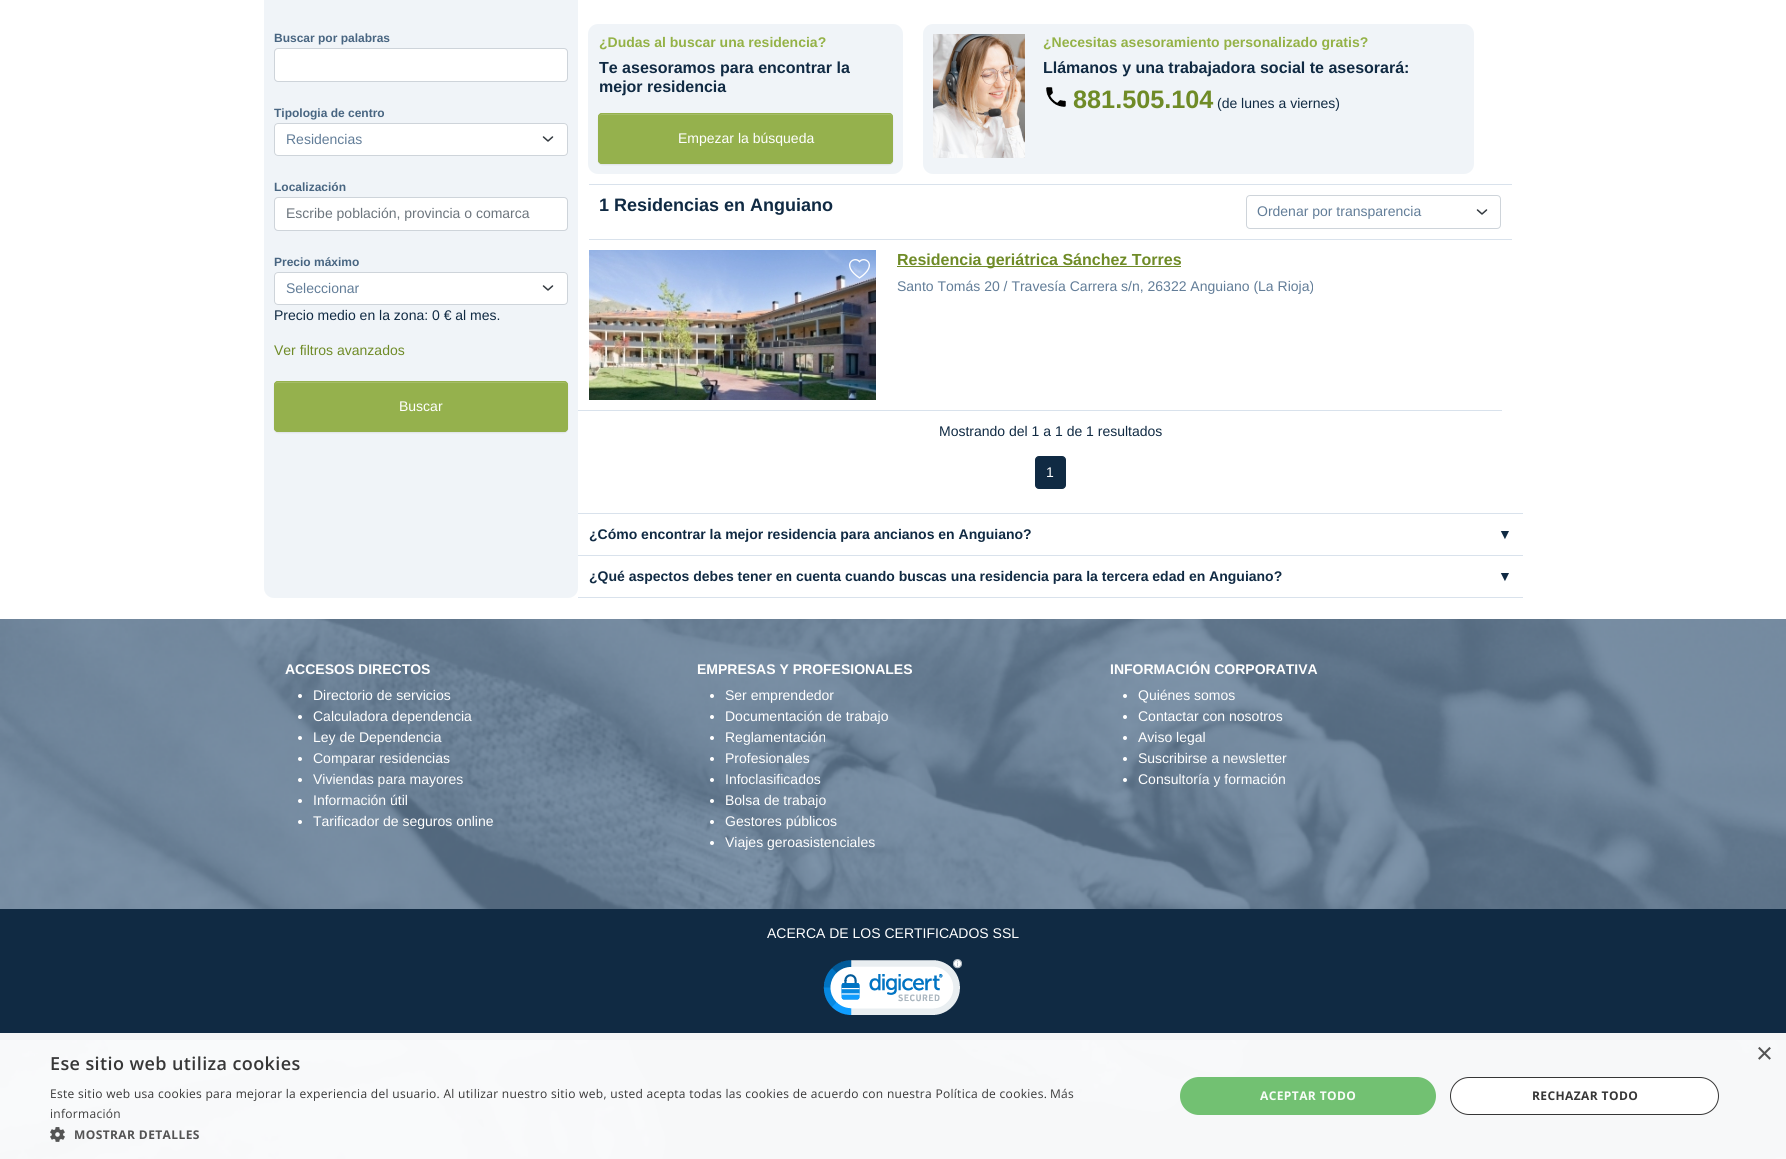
#include <cairo.h>
#include <math.h>
#include <stddef.h>


static void rgb(cairo_t *cr, int r, int g, int b)
{
	cairo_set_source_rgb(cr, r / 255.0, g / 255.0, b / 255.0);
}

static void face(cairo_t *cr, const char *family, double size, int italic, int bold)
{
	cairo_select_font_face(cr, family, italic ? CAIRO_FONT_SLANT_ITALIC : CAIRO_FONT_SLANT_NORMAL,
		bold ? CAIRO_FONT_WEIGHT_BOLD : CAIRO_FONT_WEIGHT_NORMAL);
	cairo_set_font_size(cr, size);
}

static void label(cairo_t *cr, double x, double y, const char *s)
{
	cairo_move_to(cr, x, y);
	cairo_show_text(cr, s);
}

static void tracked(cairo_t *cr, double x, double y, const char *s, double letter, double word)
{
	cairo_move_to(cr, x, y);
	while (*s) {
		char ch[5] = {0};
		int n = 0;
		do ch[n++] = *s++; while ((*s & 0xC0) == 0x80);
		cairo_show_text(cr, ch);
		cairo_rel_move_to(cr, letter + word * (*ch == ' '), 0);
	}
}

static void rect(cairo_t *cr, double x, double y, double w, double h)
{
	cairo_rectangle(cr, x, y, w, h);
	cairo_fill(cr);
}

static void rrect(cairo_t *cr, double x, double y, double w, double h, double r)
{
	cairo_new_sub_path(cr);
	cairo_arc(cr, x + w - r, y + h - r, r, 0, M_PI / 2);
	cairo_arc(cr, x + r, y + h - r, r, M_PI / 2, M_PI);
	cairo_arc(cr, x + r, y + r, r, M_PI, 1.5 * M_PI);
	cairo_arc(cr, x + w - r, y + r, r, 1.5 * M_PI, 2 * M_PI);
	cairo_close_path(cr);
}

static void soft_shadow(cairo_t *cr, double x, double y, double w, double h, double r, double blur, double alpha)
{
	cairo_push_group_with_content(cr, CAIRO_CONTENT_ALPHA);
	cairo_set_operator(cr, CAIRO_OPERATOR_SOURCE);
	for (int i = 15; i >= -15 && fmin(w, h) + blur * i / 3 > 0; i -= 2) {
		double e = blur * i / 6;
		cairo_set_source_rgba(cr, 0, 0, 0, alpha * erfc((i - 1) / 8.5) / 2);
		rrect(cr, x - e, y - e, w + 2 * e, h + 2 * e, fmax(0, fmin(r + e + blur * .6, fmin(w, h) / 2 + e)));
		cairo_fill(cr);
	}
	cairo_pattern_t *soft = cairo_pop_group(cr);
	cairo_mask(cr, soft);
	cairo_pattern_destroy(soft);
}

static void image(cairo_t *cr, const char *path, double x, double y, double w, double h)
{
	cairo_surface_t *image = cairo_image_surface_create_from_png(path);
	cairo_save(cr);
	cairo_set_source_surface(cr, image, x, y);
	cairo_rectangle(cr, x, y, w, h);
	cairo_fill(cr);
	cairo_restore(cr);
	cairo_surface_destroy(image);
}

static void draw(cairo_t *cr) {
	rgb(cr, 255, 255, 255);
	cairo_paint(cr);
	rgb(cr, 240, 244, 248);
	rrect(cr, 264, -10, 314, 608, 10);
	cairo_fill(cr);
	face(cr, "Liberation Sans", 12, 0, 1);
	rgb(cr, 72, 101, 129);
	label(cr, 274, 42, "Buscar por palabras");
	rgb(cr, 255, 255, 255);
	rrect(cr, 275, 49, 292, 32, 2.5);
	cairo_fill(cr);
	rrect(cr, 274.5, 48.5, 293, 33, 3.5);
	rgb(cr, 206, 212, 218);
	cairo_set_line_width(cr, 1);
	cairo_stroke(cr);
	rgb(cr, 72, 101, 129);
	label(cr, 274, 117, "Tipologia de centro");
	rgb(cr, 255, 255, 255);
	rrect(cr, 274, 123, 294, 33, 4);
	cairo_fill(cr);
	cairo_new_path(cr);
	cairo_move_to(cr, 543.5, 137);
	cairo_line_to(cr, 548, 141);
	cairo_line_to(cr, 552.5, 137);
	rgb(cr, 52, 58, 64);
	cairo_set_line_width(cr, 1.5);
	cairo_set_line_cap(cr, CAIRO_LINE_CAP_ROUND);
	cairo_set_line_join(cr, CAIRO_LINE_JOIN_ROUND);
	cairo_stroke(cr);
	rrect(cr, 274.5, 123.5, 293, 32, 3.5);
	rgb(cr, 206, 212, 218);
	cairo_set_line_width(cr, 1);
	cairo_set_line_cap(cr, CAIRO_LINE_CAP_BUTT);
	cairo_set_line_join(cr, CAIRO_LINE_JOIN_MITER);
	cairo_stroke(cr);
	face(cr, "Liberation Sans", 14, 0, 0);
	rgb(cr, 98, 125, 152);
	label(cr, 286, 144, "Residencias");
	face(cr, "Liberation Sans", 12, 0, 1);
	rgb(cr, 72, 101, 129);
	label(cr, 274, 191, "Localización");
	rgb(cr, 255, 255, 255);
	rrect(cr, 275, 198, 292, 32, 2.5);
	cairo_fill(cr);
	rrect(cr, 274.5, 197.5, 293, 33, 3.5);
	rgb(cr, 206, 212, 218);
	cairo_stroke(cr);
	face(cr, "Liberation Sans", 14, 0, 0);
	rgb(cr, 108, 117, 125);
	label(cr, 286, 218, "Escribe población, provincia o comarca");
	face(cr, "Liberation Sans", 12, 0, 1);
	rgb(cr, 72, 101, 129);
	label(cr, 274, 266, "Precio máximo");
	rgb(cr, 255, 255, 255);
	rrect(cr, 274, 272, 294, 33, 4);
	cairo_fill(cr);
	cairo_new_path(cr);
	cairo_move_to(cr, 543.5, 286);
	cairo_line_to(cr, 548, 290);
	cairo_line_to(cr, 552.5, 286);
	rgb(cr, 52, 58, 64);
	cairo_set_line_width(cr, 1.5);
	cairo_set_line_cap(cr, CAIRO_LINE_CAP_ROUND);
	cairo_set_line_join(cr, CAIRO_LINE_JOIN_ROUND);
	cairo_stroke(cr);
	rrect(cr, 274.5, 272.5, 293, 32, 3.5);
	rgb(cr, 206, 212, 218);
	cairo_set_line_width(cr, 1);
	cairo_set_line_cap(cr, CAIRO_LINE_CAP_BUTT);
	cairo_set_line_join(cr, CAIRO_LINE_JOIN_MITER);
	cairo_stroke(cr);
	face(cr, "Liberation Sans", 14, 0, 0);
	rgb(cr, 98, 125, 152);
	label(cr, 286, 293, "Seleccionar");
	rgb(cr, 16, 42, 67);
	label(cr, 274, 320, "Precio medio en la zona: 0 € al mes.");
	rgb(cr, 111, 139, 39);
	label(cr, 274, 355, "Ver filtros avanzados");
	rgb(cr, 0, 0, 0);
	soft_shadow(cr, 274, 382, 294, 51, 4, 0.5, 0.07);
	rgb(cr, 149, 177, 77);
	rrect(cr, 274, 381, 294, 51, 4);
	cairo_fill(cr);
	rgb(cr, 165, 189, 104);
	cairo_new_path(cr);
	cairo_move_to(cr, 278, 383);
	cairo_line_to(cr, 564, 383);
	cairo_curve_to(cr, 566, 383, 567, 384, 567, 386);
	cairo_curve_to(cr, 567, 384, 567, 382, 564, 382);
	cairo_line_to(cr, 278, 382);
	cairo_curve_to(cr, 275, 382, 275, 384, 275, 386);
	cairo_curve_to(cr, 275, 384, 276, 383, 278, 383);
	cairo_close_path(cr);
	cairo_fill(cr);
	rrect(cr, 274.5, 381.5, 293, 50, 3.5);
	rgb(cr, 149, 177, 77);
	cairo_stroke(cr);
	rgb(cr, 255, 255, 255);
	label(cr, 399, 411, "Buscar");
	rgb(cr, 240, 244, 248);
	rrect(cr, 588, 24, 315, 150, 10);
	cairo_fill(cr);
	face(cr, "Liberation Sans", 14, 0, 1);
	rgb(cr, 148, 178, 71);
	label(cr, 599, 47, "¿Dudas al buscar una residencia?");
	face(cr, "Liberation Sans", 16, 0, 1);
	rgb(cr, 16, 42, 67);
	label(cr, 599, 73, "Te asesoramos para encontrar la");
	label(cr, 599, 92, "mejor residencia");
	rgb(cr, 0, 0, 0);
	soft_shadow(cr, 598, 114, 295, 51, 4, 0.5, 0.07);
	rgb(cr, 149, 177, 77);
	rrect(cr, 598, 113, 295, 51, 4);
	cairo_fill(cr);
	rgb(cr, 165, 189, 104);
	cairo_new_path(cr);
	cairo_move_to(cr, 602, 115);
	cairo_line_to(cr, 890, 115);
	cairo_curve_to(cr, 891, 115, 892, 116, 892, 118);
	cairo_curve_to(cr, 892, 116, 892, 114, 890, 114);
	cairo_line_to(cr, 602, 114);
	cairo_curve_to(cr, 599, 114, 599, 116, 599, 118);
	cairo_curve_to(cr, 599, 116, 600, 115, 602, 115);
	cairo_close_path(cr);
	cairo_fill(cr);
	rrect(cr, 598.5, 113.5, 294, 50, 3.5);
	rgb(cr, 149, 177, 77);
	cairo_stroke(cr);
	face(cr, "Liberation Sans", 14, 0, 0);
	rgb(cr, 255, 255, 255);
	label(cr, 678, 143, "Empezar la búsqueda");
	rgb(cr, 240, 244, 248);
	rrect(cr, 923, 24, 551, 150, 10);
	cairo_fill(cr);
	image(cr, "image0.png", 933, 34, 92, 124);
	face(cr, "Liberation Sans", 14, 0, 1);
	rgb(cr, 148, 178, 71);
	label(cr, 1043, 47, "¿Necesitas asesoramiento personalizado gratis?");
	face(cr, "Liberation Sans", 16, 0, 1);
	rgb(cr, 16, 42, 67);
	label(cr, 1043, 73, "Llámanos y una trabajadora social te asesorará:");
	image(cr, "image1.png", 1046, 87, 20, 20);
	face(cr, "Liberation Sans", 25.25, 0, 1);
	rgb(cr, 111, 139, 39);
	label(cr, 1073, 108, "881.505.104");
	face(cr, "Liberation Sans", 14, 0, 0);
	rgb(cr, 16, 42, 67);
	label(cr, 1217, 108, "(de lunes a viernes)");
	rgb(cr, 217, 226, 236);
	rect(cr, 589, 184, 923, 1);
	rect(cr, 589, 239, 923, 1);
	face(cr, "Liberation Sans", 18, 0, 1);
	rgb(cr, 16, 42, 67);
	label(cr, 599, 211, "1 Residencias en Anguiano");
	cairo_new_path(cr);
	cairo_move_to(cr, 1477.5, 210);
	cairo_line_to(cr, 1482, 214);
	cairo_line_to(cr, 1486.5, 210);
	rgb(cr, 52, 58, 64);
	cairo_set_line_width(cr, 1.5);
	cairo_set_line_cap(cr, CAIRO_LINE_CAP_ROUND);
	cairo_set_line_join(cr, CAIRO_LINE_JOIN_ROUND);
	cairo_stroke(cr);
	rrect(cr, 1246.5, 195.5, 254, 33, 3.5);
	rgb(cr, 206, 212, 218);
	cairo_set_line_width(cr, 1);
	cairo_set_line_cap(cr, CAIRO_LINE_CAP_BUTT);
	cairo_set_line_join(cr, CAIRO_LINE_JOIN_MITER);
	cairo_stroke(cr);
	face(cr, "Liberation Sans", 14, 0, 0);
	rgb(cr, 98, 125, 152);
	label(cr, 1257, 216, "Ordenar por transparencia");
	rgb(cr, 217, 226, 236);
	rect(cr, 578, 410, 924, 1);
	image(cr, "image2.png", 589, 250, 287, 150);
	image(cr, "image3.png", 849, 259, 21, 20);
	rgb(cr, 111, 139, 39);
	rect(cr, 897, 266, 284, 1);
	face(cr, "Liberation Sans", 16, 0, 1);
	label(cr, 897, 265, "Residencia geriátrica Sánchez Torres");
	face(cr, "Liberation Sans", 14, 0, 0);
	rgb(cr, 98, 125, 152);
	label(cr, 897, 291, "Santo Tomás 20 / Travesía Carrera s/n, 26322 Anguiano (La Rioja)");
	rgb(cr, 16, 42, 67);
	label(cr, 939, 436, "Mostrando del 1 a 1 de 1 resultados");
	rrect(cr, 1035.5, 456.5, 30, 32, 3.5);
	cairo_fill_preserve(cr);
	cairo_stroke(cr);
	rgb(cr, 255, 255, 255);
	label(cr, 1046, 477, "1");
	rgb(cr, 217, 226, 236);
	rect(cr, 578, 597, 945, 1);
	rect(cr, 578, 513, 945, 1);
	face(cr, "Liberation Sans", 14, 0, 1);
	rgb(cr, 16, 42, 67);
	label(cr, 589, 539, "¿Cómo encontrar la mejor residencia para ancianos en Anguiano?");
	face(cr, "Liberation Sans", 14, 0, 0);
	label(cr, 1498, 539, "▼");
	rgb(cr, 217, 226, 236);
	rect(cr, 578, 555, 945, 1);
	face(cr, "Liberation Sans", 14, 0, 1);
	rgb(cr, 16, 42, 67);
	label(cr, 589, 581, "¿Qué aspectos debes tener en cuenta cuando buscas una residencia para la tercera edad en Anguiano?");
	face(cr, "Liberation Sans", 14, 0, 0);
	label(cr, 1498, 581, "▼");
	image(cr, "image4.png", 0, 619, 1786, 540);
	face(cr, "Liberation Sans", 14, 0, 1);
	rgb(cr, 255, 255, 255);
	label(cr, 285, 674, "ACCESOS DIRECTOS");
	cairo_new_path(cr);
	cairo_arc(cr, 300, 696, 2, 0, 2 * M_PI);
	cairo_fill(cr);
	face(cr, "Liberation Sans", 14, 0, 0);
	label(cr, 313, 700, "Directorio de servicios");
	cairo_new_path(cr);
	cairo_arc(cr, 300, 717, 2, 0, 2 * M_PI);
	cairo_fill(cr);
	label(cr, 313, 721, "Calculadora dependencia");
	cairo_new_path(cr);
	cairo_arc(cr, 300, 738, 2, 0, 2 * M_PI);
	cairo_fill(cr);
	label(cr, 313, 742, "Ley de Dependencia");
	cairo_new_path(cr);
	cairo_arc(cr, 300, 759, 2, 0, 2 * M_PI);
	cairo_fill(cr);
	label(cr, 313, 763, "Comparar residencias");
	cairo_new_path(cr);
	cairo_arc(cr, 300, 780, 2, 0, 2 * M_PI);
	cairo_fill(cr);
	label(cr, 313, 784, "Viviendas para mayores");
	cairo_new_path(cr);
	cairo_arc(cr, 300, 801, 2, 0, 2 * M_PI);
	cairo_fill(cr);
	label(cr, 313, 805, "Información útil");
	cairo_new_path(cr);
	cairo_arc(cr, 300, 822, 2, 0, 2 * M_PI);
	cairo_fill(cr);
	label(cr, 313, 826, "Tarificador de seguros online");
	face(cr, "Liberation Sans", 14, 0, 1);
	label(cr, 697, 674, "EMPRESAS Y PROFESIONALES");
	cairo_new_path(cr);
	cairo_arc(cr, 712, 696, 2, 0, 2 * M_PI);
	cairo_fill(cr);
	face(cr, "Liberation Sans", 14, 0, 0);
	label(cr, 725, 700, "Ser emprendedor");
	cairo_new_path(cr);
	cairo_arc(cr, 712, 717, 2, 0, 2 * M_PI);
	cairo_fill(cr);
	label(cr, 725, 721, "Documentación de trabajo");
	cairo_new_path(cr);
	cairo_arc(cr, 712, 738, 2, 0, 2 * M_PI);
	cairo_fill(cr);
	label(cr, 725, 742, "Reglamentación");
	cairo_new_path(cr);
	cairo_arc(cr, 712, 759, 2, 0, 2 * M_PI);
	cairo_fill(cr);
	label(cr, 725, 763, "Profesionales");
	cairo_new_path(cr);
	cairo_arc(cr, 712, 780, 2, 0, 2 * M_PI);
	cairo_fill(cr);
	label(cr, 725, 784, "Infoclasificados");
	cairo_new_path(cr);
	cairo_arc(cr, 712, 801, 2, 0, 2 * M_PI);
	cairo_fill(cr);
	label(cr, 725, 805, "Bolsa de trabajo");
	cairo_new_path(cr);
	cairo_arc(cr, 712, 822, 2, 0, 2 * M_PI);
	cairo_fill(cr);
	label(cr, 725, 826, "Gestores públicos");
	cairo_new_path(cr);
	cairo_arc(cr, 712, 843, 2, 0, 2 * M_PI);
	cairo_fill(cr);
	label(cr, 725, 847, "Viajes geroasistenciales");
	face(cr, "Liberation Sans", 14, 0, 1);
	label(cr, 1110, 674, "INFORMACIÓN CORPORATIVA");
	cairo_new_path(cr);
	cairo_arc(cr, 1125, 696, 2, 0, 2 * M_PI);
	cairo_fill(cr);
	face(cr, "Liberation Sans", 14, 0, 0);
	label(cr, 1138, 700, "Quiénes somos");
	cairo_new_path(cr);
	cairo_arc(cr, 1125, 717, 2, 0, 2 * M_PI);
	cairo_fill(cr);
	label(cr, 1138, 721, "Contactar con nosotros");
	cairo_new_path(cr);
	cairo_arc(cr, 1125, 738, 2, 0, 2 * M_PI);
	cairo_fill(cr);
	label(cr, 1138, 742, "Aviso legal");
	cairo_new_path(cr);
	cairo_arc(cr, 1125, 759, 2, 0, 2 * M_PI);
	cairo_fill(cr);
	label(cr, 1138, 763, "Suscribirse a newsletter");
	cairo_new_path(cr);
	cairo_arc(cr, 1125, 780, 2, 0, 2 * M_PI);
	cairo_fill(cr);
	label(cr, 1138, 784, "Consultoría y formación");
	rgb(cr, 16, 42, 67);
	rect(cr, 0, 909, 1786, 131);
	rgb(cr, 255, 255, 255);
	label(cr, 767, 938, "ACERCA DE LOS CERTIFICADOS SSL");
	image(cr, "image5.png", 823, 959, 139, 56);
	cairo_set_source_rgba(cr, 1, 1, 1, 0.95);
	rect(cr, 0, 1033, 1786, 126);
	face(cr, "Liberation Sans", 29, 0, 0);
	rgb(cr, 84, 84, 84);
	label(cr, 1756, 1063, "×");
	face(cr, "Open Sans SemiBold", 18, 0, 0);
	rgb(cr, 55, 55, 55);
	tracked(cr, 50, 1070, "Ese sitio web utiliza cookies", 0.4, 0);
	face(cr, "Open Sans", 12, 0, 0);
	tracked(cr, 50, 1098, "Este sitio web usa cookies para mejorar la experiencia del usuario. Al utilizar nuestro sitio web, usted acepta todas las cookies de acuerdo con nuestra Política de cookies.", 0.3, 0);
	rgb(cr, 61, 61, 61);
	tracked(cr, 1050, 1098, "Más", 0.3, 0);
	tracked(cr, 50, 1118, "información", 0.3, 0);
	image(cr, "image6.png", 50, 1127, 15, 15);
	face(cr, "Open Sans", 12, 0, 1);
	rgb(cr, 84, 84, 84);
	tracked(cr, 74, 1139, "MOSTRAR DETALLES", 0.4, 0);
	cairo_set_source_rgba(cr, 0.42, 0.745, 0.42, 0.95);
	rrect(cr, 1180, 1077, 256, 38, 19);
	cairo_fill(cr);
	rgb(cr, 248, 252, 248);
	tracked(cr, 1260, 1100, "ACEPTAR TODO", 0.4, 0);
	rgb(cr, 255, 255, 255);
	rrect(cr, 1450, 1077, 269, 38, 19);
	cairo_fill(cr);
	rrect(cr, 1450.5, 1077.5, 268, 37, 18.5);
	cairo_set_source_rgba(cr, 0.176, 0.176, 0.176, 0.95);
	cairo_stroke(cr);
	rgb(cr, 55, 55, 55);
	tracked(cr, 1532, 1100, "RECHAZAR TODO", 0.4, 0);
}

int main(void) {
	cairo_surface_t *surface = cairo_image_surface_create(CAIRO_FORMAT_RGB24, 1786, 1159);
	cairo_t *cr = cairo_create(surface);
	cairo_font_options_t *options = cairo_font_options_create();
	cairo_font_options_set_hint_metrics(options, CAIRO_HINT_METRICS_OFF);
	cairo_font_options_set_hint_style(options, CAIRO_HINT_STYLE_NONE);
	cairo_set_font_options(cr, options);
	cairo_set_miter_limit(cr, 4);
	draw(cr);
	cairo_surface_write_to_png(surface, "render.png");
	cairo_font_options_destroy(options);
	cairo_destroy(cr);
	cairo_surface_destroy(surface);
	return 0;
}
